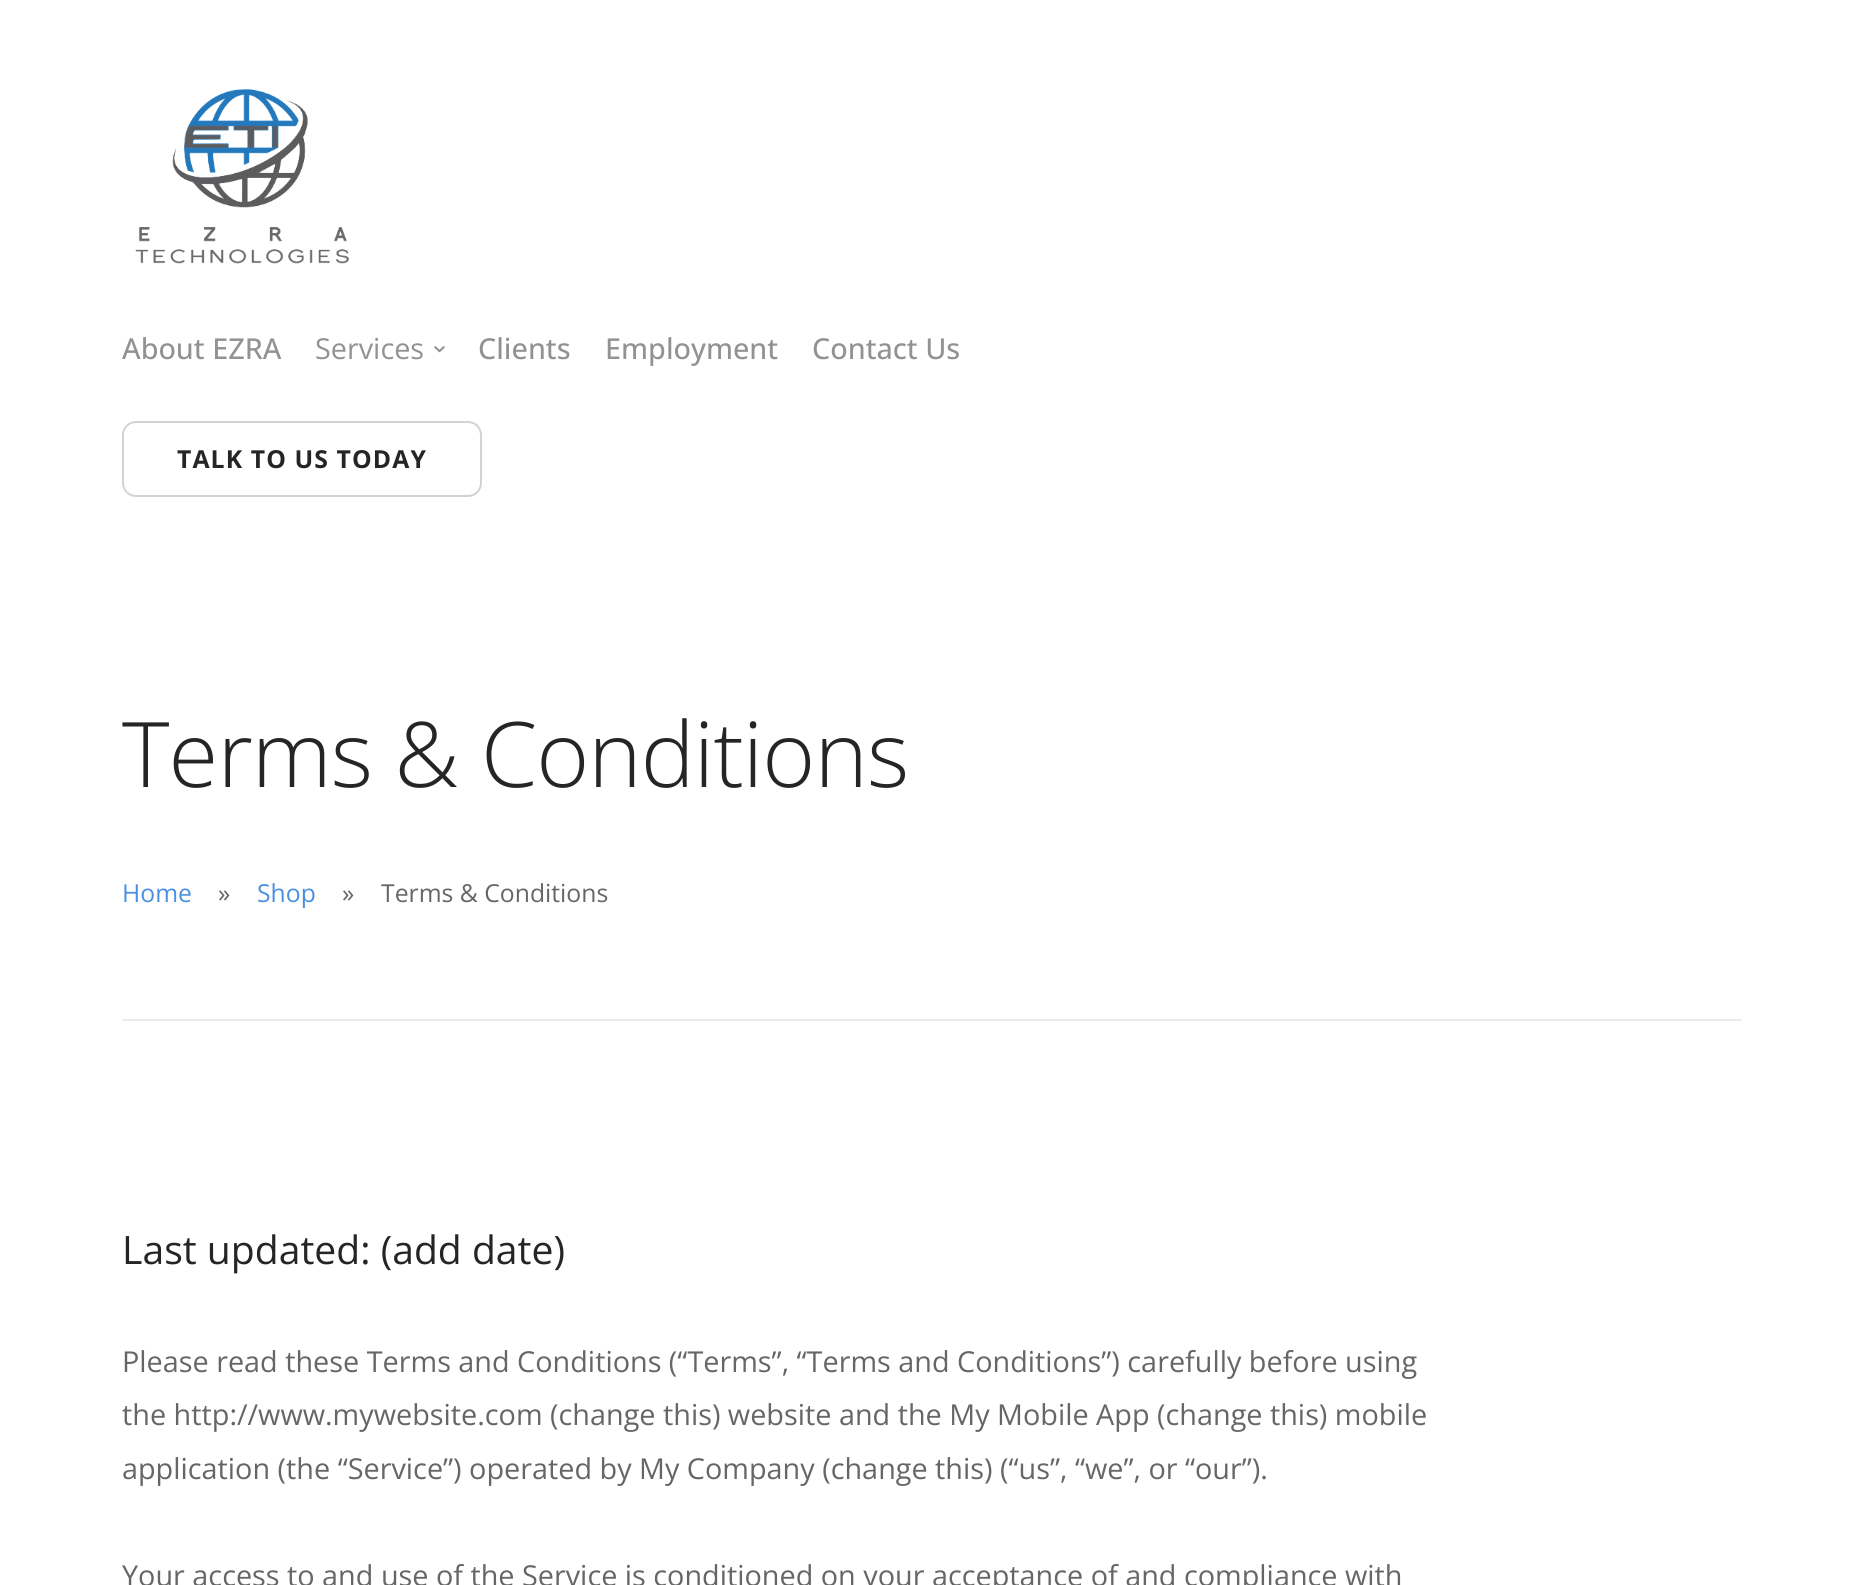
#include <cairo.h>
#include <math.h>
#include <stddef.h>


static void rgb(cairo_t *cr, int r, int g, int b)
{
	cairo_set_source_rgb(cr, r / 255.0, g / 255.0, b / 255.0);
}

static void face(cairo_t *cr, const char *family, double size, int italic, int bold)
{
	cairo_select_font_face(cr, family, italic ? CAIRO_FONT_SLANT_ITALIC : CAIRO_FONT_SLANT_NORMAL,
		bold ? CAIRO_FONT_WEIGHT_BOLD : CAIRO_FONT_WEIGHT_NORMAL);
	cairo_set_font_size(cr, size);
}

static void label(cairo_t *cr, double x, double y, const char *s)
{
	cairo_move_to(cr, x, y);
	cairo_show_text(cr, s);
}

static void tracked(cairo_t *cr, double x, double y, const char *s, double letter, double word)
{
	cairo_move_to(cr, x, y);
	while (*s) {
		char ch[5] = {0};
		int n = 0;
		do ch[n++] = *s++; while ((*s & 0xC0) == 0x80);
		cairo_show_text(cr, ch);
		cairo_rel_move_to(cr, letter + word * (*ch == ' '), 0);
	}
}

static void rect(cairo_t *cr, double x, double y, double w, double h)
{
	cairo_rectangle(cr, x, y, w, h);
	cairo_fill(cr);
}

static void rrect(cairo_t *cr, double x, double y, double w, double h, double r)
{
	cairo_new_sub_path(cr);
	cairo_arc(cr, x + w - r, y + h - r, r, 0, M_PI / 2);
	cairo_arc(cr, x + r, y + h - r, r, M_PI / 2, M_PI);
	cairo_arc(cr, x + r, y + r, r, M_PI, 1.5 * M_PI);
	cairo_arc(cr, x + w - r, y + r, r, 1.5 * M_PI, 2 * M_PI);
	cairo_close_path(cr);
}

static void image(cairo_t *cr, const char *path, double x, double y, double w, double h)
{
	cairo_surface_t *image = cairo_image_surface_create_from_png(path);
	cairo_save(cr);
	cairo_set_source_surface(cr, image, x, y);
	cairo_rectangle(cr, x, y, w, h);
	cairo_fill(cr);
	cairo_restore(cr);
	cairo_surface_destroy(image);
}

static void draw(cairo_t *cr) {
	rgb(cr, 255, 255, 255);
	cairo_paint(cr);
	image(cr, "image0.png", 135, 89, 214, 175);
	face(cr, "Open Sans Medium", 28.8, 0, 0);
	rgb(cr, 146, 146, 146);
	label(cr, 122, 359, "About EZRA");
	face(cr, "Open Sans", 28.8, 0, 0);
	label(cr, 315, 359, "Services");
	image(cr, "image1.png", 434, 346, 11, 7);
	face(cr, "Open Sans Medium", 28.8, 0, 0);
	label(cr, 478, 359, "Clients");
	label(cr, 605, 359, "Employment");
	label(cr, 812, 359, "Contact Us");
	rrect(cr, 123, 422, 358, 74, 13);
	rgb(cr, 211, 211, 211);
	cairo_stroke(cr);
	face(cr, "Open Sans", 24.75, 0, 1);
	rgb(cr, 37, 37, 37);
	tracked(cr, 177, 468, "TALK TO US TODAY", 1.1, 0);
	face(cr, "Open Sans Light", 90.5, 0, 0);
	tracked(cr, 122, 787, "Terms & Conditions", -0.9, 0);
	face(cr, "Open Sans", 24.75, 0, 0);
	rgb(cr, 74, 144, 226);
	label(cr, 122, 902, "Home");
	rgb(cr, 102, 102, 102);
	label(cr, 218, 902, "»");
	rgb(cr, 74, 144, 226);
	label(cr, 257, 902, "Shop");
	rgb(cr, 102, 102, 102);
	label(cr, 342, 902, "»");
	label(cr, 381, 902, "Terms & Conditions");
	rgb(cr, 236, 236, 236);
	rect(cr, 122, 1019, 1620, 2);
	face(cr, "Open Sans", 39.1, 0, 0);
	rgb(cr, 37, 37, 37);
	label(cr, 122, 1264, "Last updated: (add date)");
	face(cr, "Open Sans", 28.8, 0, 0);
	rgb(cr, 102, 102, 102);
	label(cr, 122, 1372, "Please read these Terms and Conditions (“Terms”, “Terms and Conditions”) carefully before using");
	label(cr, 122, 1425, "the http://www.mywebsite.com (change this) website and the My Mobile App (change this) mobile");
	label(cr, 122, 1479, "application (the “Service”) operated by My Company (change this) (“us”, “we”, or “our”).");
	label(cr, 122, 1586, "Your access to and use of the Service is conditioned on your acceptance of and compliance with");
}

int main(void) {
	cairo_surface_t *surface = cairo_image_surface_create(CAIRO_FORMAT_RGB24, 1861, 1585);
	cairo_t *cr = cairo_create(surface);
	cairo_font_options_t *options = cairo_font_options_create();
	cairo_font_options_set_hint_metrics(options, CAIRO_HINT_METRICS_OFF);
	cairo_font_options_set_hint_style(options, CAIRO_HINT_STYLE_NONE);
	cairo_set_font_options(cr, options);
	cairo_set_miter_limit(cr, 4);
	draw(cr);
	cairo_surface_write_to_png(surface, "render.png");
	cairo_font_options_destroy(options);
	cairo_destroy(cr);
	cairo_surface_destroy(surface);
	return 0;
}
